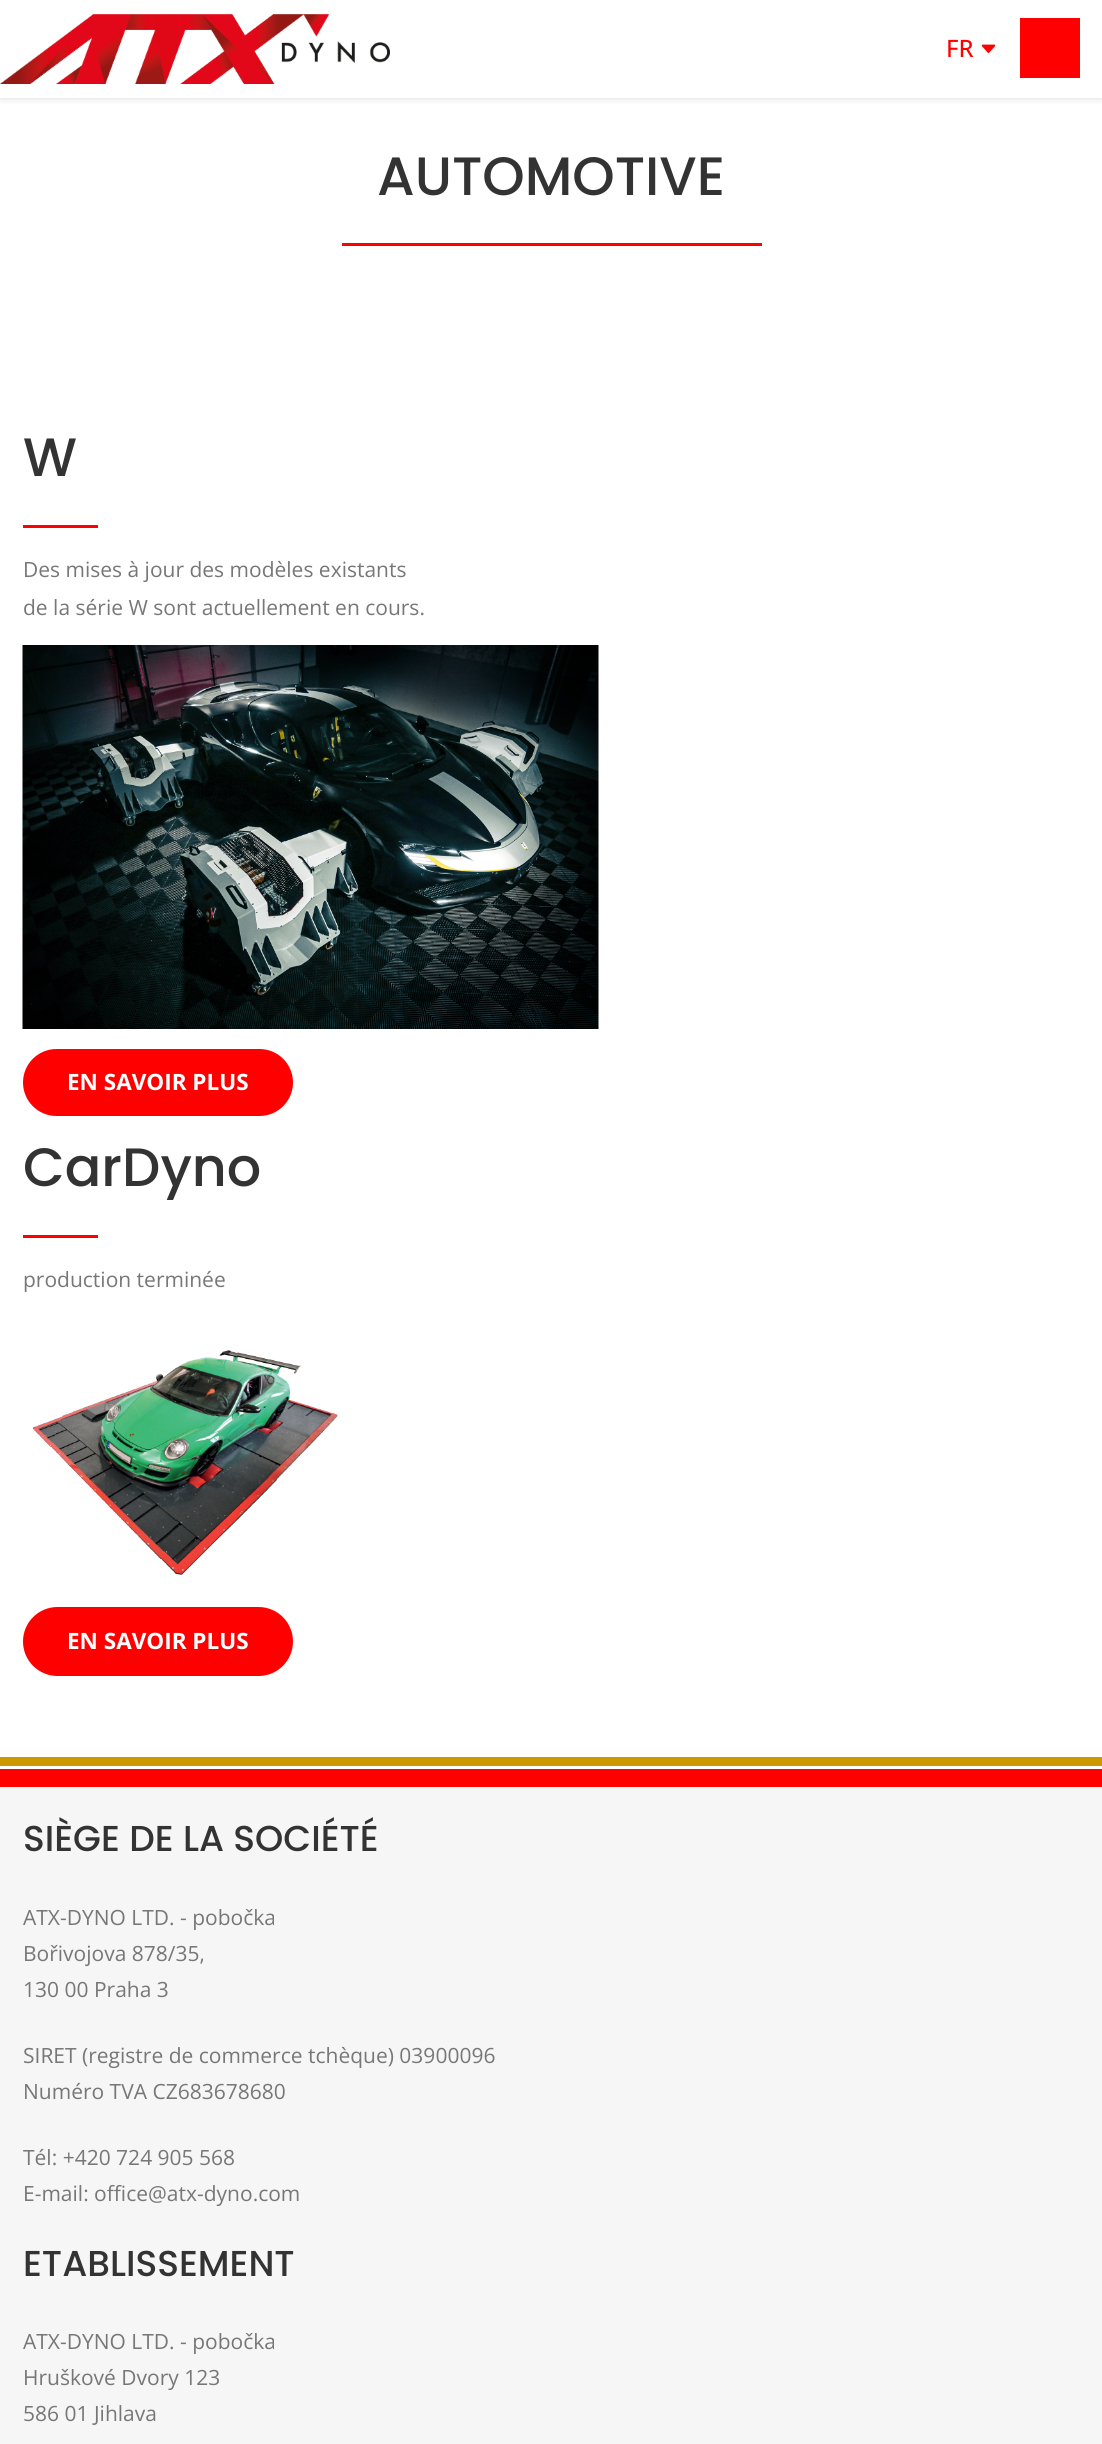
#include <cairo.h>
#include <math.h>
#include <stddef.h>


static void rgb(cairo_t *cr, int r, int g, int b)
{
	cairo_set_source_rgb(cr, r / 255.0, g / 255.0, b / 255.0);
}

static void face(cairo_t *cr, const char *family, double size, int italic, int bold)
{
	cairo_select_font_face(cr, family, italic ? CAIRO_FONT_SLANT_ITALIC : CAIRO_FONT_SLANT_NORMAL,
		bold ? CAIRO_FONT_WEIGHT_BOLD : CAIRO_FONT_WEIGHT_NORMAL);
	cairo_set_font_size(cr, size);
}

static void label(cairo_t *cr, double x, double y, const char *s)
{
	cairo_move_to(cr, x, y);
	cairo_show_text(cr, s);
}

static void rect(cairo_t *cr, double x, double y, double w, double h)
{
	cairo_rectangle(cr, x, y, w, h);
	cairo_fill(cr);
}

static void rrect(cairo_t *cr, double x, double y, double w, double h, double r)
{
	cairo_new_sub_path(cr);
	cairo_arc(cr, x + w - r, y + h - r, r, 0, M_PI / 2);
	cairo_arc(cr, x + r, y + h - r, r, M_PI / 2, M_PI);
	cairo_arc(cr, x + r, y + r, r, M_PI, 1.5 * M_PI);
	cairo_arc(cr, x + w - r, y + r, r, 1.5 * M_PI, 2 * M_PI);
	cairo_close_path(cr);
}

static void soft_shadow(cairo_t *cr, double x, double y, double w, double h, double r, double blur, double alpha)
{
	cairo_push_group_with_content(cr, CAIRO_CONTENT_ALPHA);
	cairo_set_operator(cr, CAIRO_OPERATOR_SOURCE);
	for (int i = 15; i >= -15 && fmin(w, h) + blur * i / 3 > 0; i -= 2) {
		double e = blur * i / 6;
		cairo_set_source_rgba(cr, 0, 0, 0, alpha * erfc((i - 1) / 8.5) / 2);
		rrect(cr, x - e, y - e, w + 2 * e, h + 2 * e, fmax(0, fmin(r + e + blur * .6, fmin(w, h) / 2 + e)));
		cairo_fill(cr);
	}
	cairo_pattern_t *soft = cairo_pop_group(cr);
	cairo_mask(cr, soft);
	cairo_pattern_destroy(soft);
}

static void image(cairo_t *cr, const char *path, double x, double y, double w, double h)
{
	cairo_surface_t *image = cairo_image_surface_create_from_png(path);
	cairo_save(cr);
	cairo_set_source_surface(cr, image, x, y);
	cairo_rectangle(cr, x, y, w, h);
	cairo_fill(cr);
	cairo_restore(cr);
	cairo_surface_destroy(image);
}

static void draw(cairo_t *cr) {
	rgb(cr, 255, 255, 255);
	cairo_paint(cr);
	rgb(cr, 0, 0, 0);
	soft_shadow(cr, 0, 0, 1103, 98, 0, 4, 0.15);
	rgb(cr, 255, 255, 255);
	rect(cr, 0, 0, 1102, 98);
	image(cr, "image0.png", 0, 14, 390, 70);
	face(cr, "Open Sans Medium", 24, 0, 0);
	rgb(cr, 255, 0, 0);
	label(cr, 946, 57, "FR");
	image(cr, "image1.png", 981, 44, 15, 9);
	rect(cr, 1020, 18, 60, 60);
	face(cr, "Poppins Medium", 54, 0, 0);
	rgb(cr, 51, 51, 51);
	label(cr, 377, 195, "AUTOMOTIVE");
	rgb(cr, 255, 0, 0);
	rect(cr, 342, 243, 420, 3);
	rgb(cr, 51, 51, 51);
	label(cr, 23, 476, "W");
	rgb(cr, 255, 0, 0);
	rect(cr, 23, 525, 75, 3);
	face(cr, "Open Sans", 21, 0, 0);
	rgb(cr, 119, 119, 119);
	label(cr, 23, 577, "Des mises à jour des modèles existants");
	label(cr, 23, 615, "de la série W sont actuellement en cours.");
	image(cr, "image2.png", 22, 645, 577, 384);
	rgb(cr, 255, 0, 0);
	rrect(cr, 23, 1049, 270, 67, 33.5);
	cairo_fill(cr);
	face(cr, "Open Sans", 22.5, 0, 1);
	rgb(cr, 255, 255, 255);
	label(cr, 67, 1090, "EN SAVOIR PLUS");
	face(cr, "Poppins Medium", 54, 0, 0);
	rgb(cr, 51, 51, 51);
	label(cr, 23, 1186, "CarDyno");
	rgb(cr, 255, 0, 0);
	rect(cr, 23, 1235, 75, 3);
	face(cr, "Open Sans", 21, 0, 0);
	rgb(cr, 119, 119, 119);
	label(cr, 23, 1287, "production terminée");
	image(cr, "image3.png", 32, 1350, 306, 226);
	rgb(cr, 255, 0, 0);
	rrect(cr, 23, 1607, 270, 69, 34.5);
	cairo_fill(cr);
	face(cr, "Open Sans", 22.5, 0, 1);
	rgb(cr, 255, 255, 255);
	label(cr, 67, 1649, "EN SAVOIR PLUS");
	rgb(cr, 246, 246, 246);
	rect(cr, 0, 1787, 1102, 657);
	rgb(cr, 255, 0, 0);
	rect(cr, 0, 1769, 1102, 18);
	rgb(cr, 204, 153, 0);
	rect(cr, 0, 1757, 1102, 9);
	face(cr, "Poppins Medium", 36, 0, 0);
	rgb(cr, 51, 51, 51);
	label(cr, 23, 1851, "SIÈGE DE LA SOCIÉTÉ");
	face(cr, "Open Sans", 21, 0, 0);
	rgb(cr, 119, 119, 119);
	label(cr, 23, 1925, "ATX-DYNO LTD. - pobočka");
	label(cr, 23, 1961, "Bořivojova 878/35,");
	label(cr, 23, 1997, "130 00 Praha 3");
	label(cr, 23, 2063, "SIRET (registre de commerce tchèque) 03900096");
	label(cr, 23, 2099, "Numéro TVA CZ683678680");
	label(cr, 23, 2165, "Tél: +420 724 905 568");
	label(cr, 23, 2201, "E-mail: office@atx-dyno.com");
	face(cr, "Poppins Medium", 36, 0, 0);
	rgb(cr, 51, 51, 51);
	label(cr, 23, 2276, "ETABLISSEMENT");
	face(cr, "Open Sans", 21, 0, 0);
	rgb(cr, 119, 119, 119);
	label(cr, 23, 2349, "ATX-DYNO LTD. - pobočka");
	label(cr, 23, 2385, "Hruškové Dvory 123");
	label(cr, 23, 2421, "586 01 Jihlava");
}

int main(void) {
	cairo_surface_t *surface = cairo_image_surface_create(CAIRO_FORMAT_RGB24, 1102, 2444);
	cairo_t *cr = cairo_create(surface);
	cairo_font_options_t *options = cairo_font_options_create();
	cairo_font_options_set_hint_metrics(options, CAIRO_HINT_METRICS_OFF);
	cairo_font_options_set_hint_style(options, CAIRO_HINT_STYLE_NONE);
	cairo_set_font_options(cr, options);
	cairo_set_miter_limit(cr, 4);
	draw(cr);
	cairo_surface_write_to_png(surface, "render.png");
	cairo_font_options_destroy(options);
	cairo_destroy(cr);
	cairo_surface_destroy(surface);
	return 0;
}
